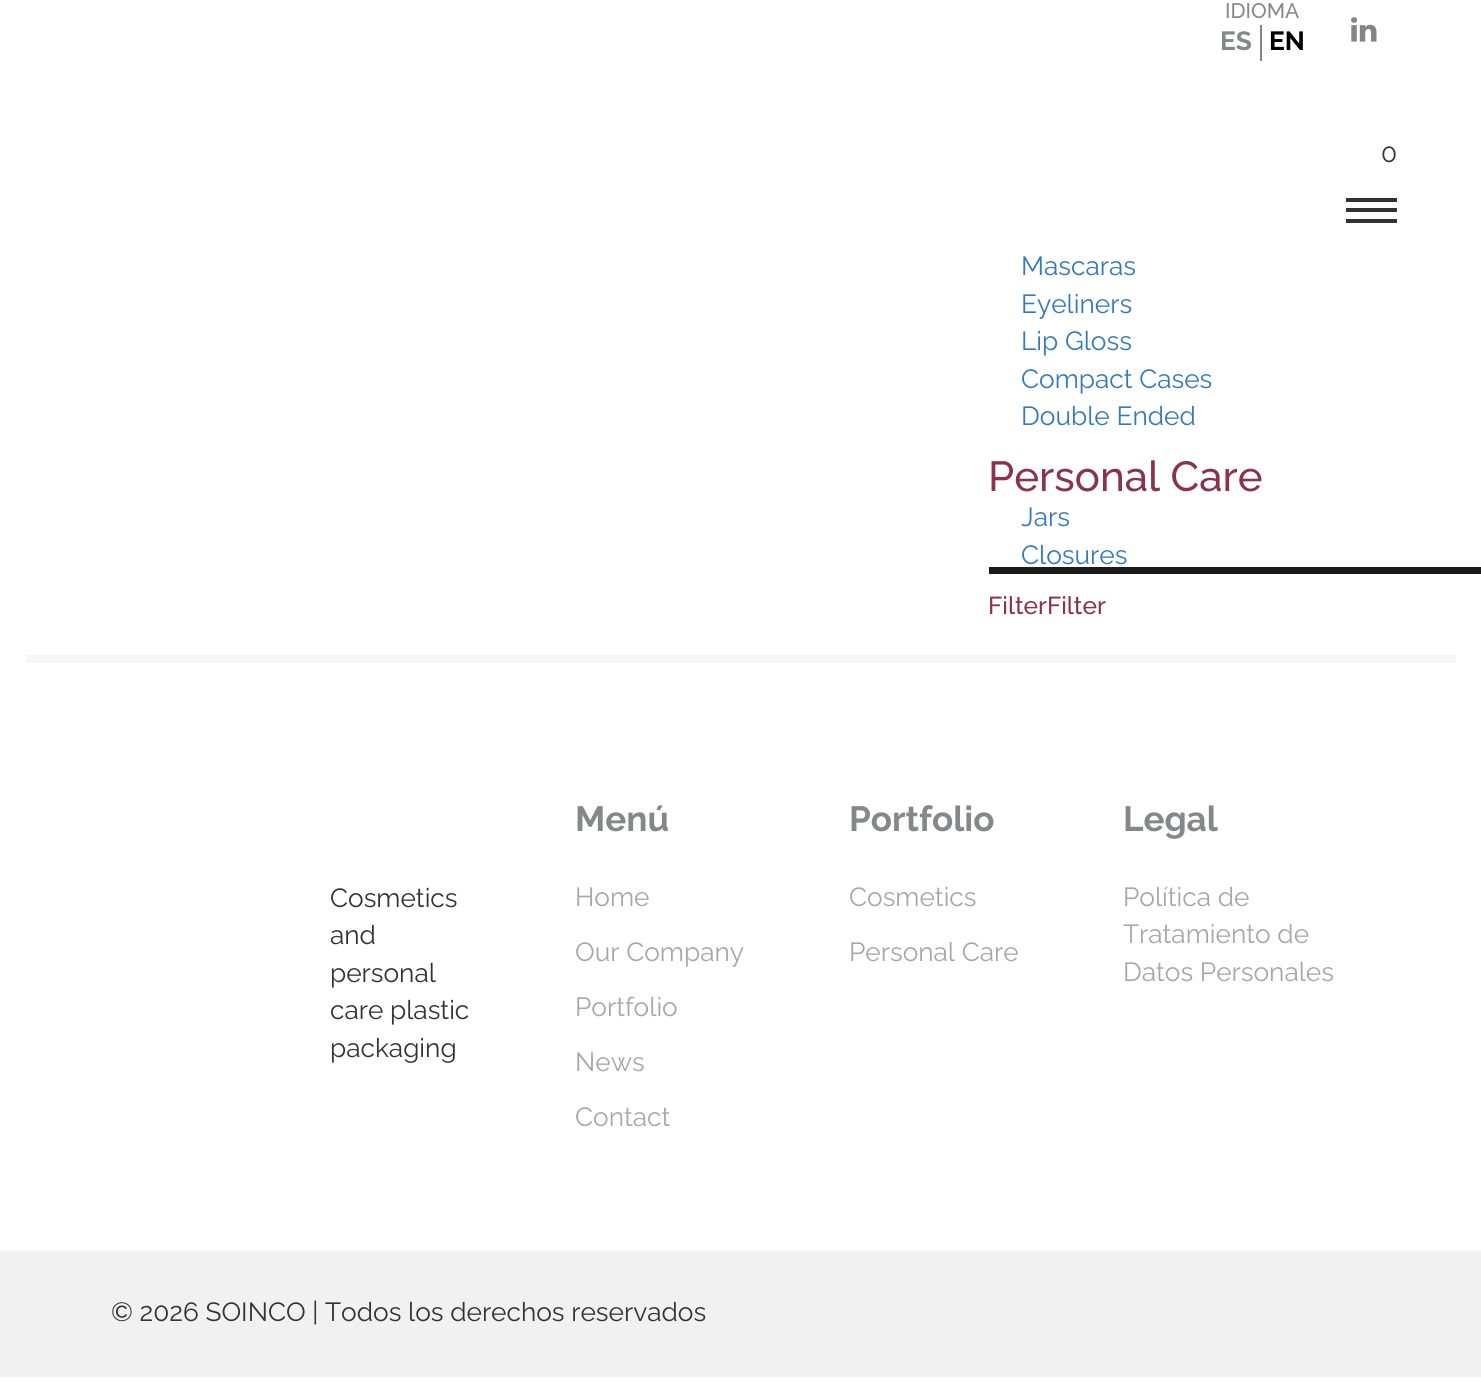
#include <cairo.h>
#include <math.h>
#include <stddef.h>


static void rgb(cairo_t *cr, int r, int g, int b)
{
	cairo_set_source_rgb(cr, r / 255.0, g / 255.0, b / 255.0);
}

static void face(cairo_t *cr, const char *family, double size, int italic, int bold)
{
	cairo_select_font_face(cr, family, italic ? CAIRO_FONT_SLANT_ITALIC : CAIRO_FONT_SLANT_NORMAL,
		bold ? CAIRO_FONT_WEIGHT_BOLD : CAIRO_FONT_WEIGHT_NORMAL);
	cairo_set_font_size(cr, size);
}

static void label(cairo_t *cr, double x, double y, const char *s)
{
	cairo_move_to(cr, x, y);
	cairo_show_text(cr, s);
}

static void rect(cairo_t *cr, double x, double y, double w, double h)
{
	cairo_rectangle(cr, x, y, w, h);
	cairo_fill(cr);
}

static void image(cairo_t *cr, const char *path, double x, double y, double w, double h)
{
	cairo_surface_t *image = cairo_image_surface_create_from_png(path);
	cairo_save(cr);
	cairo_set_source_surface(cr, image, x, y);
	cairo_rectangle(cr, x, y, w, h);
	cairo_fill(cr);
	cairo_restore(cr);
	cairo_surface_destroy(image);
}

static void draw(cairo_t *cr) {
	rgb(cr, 255, 255, 255);
	cairo_paint(cr);
	face(cr, "Raleway Medium", 21, 0, 0);
	rgb(cr, 134, 135, 138);
	label(cr, 1225, 18, "IDIOMA");
	rgb(cr, 133, 132, 136);
	rect(cr, 1260, 25, 2, 36);
	face(cr, "Raleway", 26.25, 0, 1);
	rgb(cr, 134, 135, 138);
	label(cr, 1220, 50, "ES");
	rgb(cr, 0, 0, 0);
	label(cr, 1269, 50, "EN");
	image(cr, "image0.png", 1351, 17, 26, 25);
	face(cr, "Raleway", 26.25, 0, 0);
	rgb(cr, 51, 51, 51);
	label(cr, 1381, 162, "0");
	rect(cr, 1346, 198, 51, 4);
	rect(cr, 1346, 208, 51, 4);
	rect(cr, 1346, 219, 51, 4);
	rgb(cr, 51, 122, 183);
	label(cr, 1021, 275, "Mascaras");
	label(cr, 1021, 313, "Eyeliners");
	label(cr, 1021, 350, "Lip Gloss");
	label(cr, 1021, 388, "Compact Cases");
	label(cr, 1021, 425, "Double Ended");
	face(cr, "Raleway Medium", 42, 0, 0);
	rgb(cr, 137, 51, 81);
	label(cr, 988, 491, "Personal Care");
	face(cr, "Raleway", 26.25, 0, 0);
	rgb(cr, 51, 122, 183);
	label(cr, 1021, 526, "Jars");
	label(cr, 1021, 564, "Closures");
	rgb(cr, 26, 26, 26);
	rect(cr, 989, 567, 492, 7);
	face(cr, "Raleway Medium", 24.5, 0, 0);
	rgb(cr, 137, 51, 81);
	label(cr, 988, 614, "FilterFilter");
	rgb(cr, 246, 246, 246);
	rect(cr, 26, 655, 1430, 8);
	face(cr, "Raleway", 26.25, 0, 0);
	rgb(cr, 51, 51, 51);
	label(cr, 330, 907, "Cosmetics");
	label(cr, 330, 944, "and");
	label(cr, 330, 982, "personal");
	label(cr, 330, 1019, "care plastic");
	label(cr, 330, 1057, "packaging");
	face(cr, "Raleway", 35, 0, 1);
	rgb(cr, 134, 135, 138);
	label(cr, 575, 831, "Menú");
	face(cr, "Raleway", 26.25, 0, 0);
	rgb(cr, 167, 167, 167);
	label(cr, 575, 906, "Home");
	label(cr, 575, 961, "Our Company");
	label(cr, 575, 1016, "Portfolio");
	label(cr, 575, 1071, "News");
	label(cr, 575, 1126, "Contact");
	face(cr, "Raleway", 35, 0, 1);
	rgb(cr, 134, 135, 138);
	label(cr, 849, 831, "Portfolio");
	face(cr, "Raleway", 26.25, 0, 0);
	rgb(cr, 167, 167, 167);
	label(cr, 849, 906, "Cosmetics");
	label(cr, 849, 961, "Personal Care");
	face(cr, "Raleway", 35, 0, 1);
	rgb(cr, 134, 135, 138);
	label(cr, 1123, 831, "Legal");
	face(cr, "Raleway", 26.25, 0, 0);
	rgb(cr, 167, 167, 167);
	label(cr, 1123, 906, "Política de");
	label(cr, 1123, 943, "Tratamiento de");
	label(cr, 1123, 981, "Datos Personales");
	rgb(cr, 241, 241, 241);
	rect(cr, 0, 1251, 1481, 126);
	rgb(cr, 51, 51, 51);
	label(cr, 111, 1321, "© 2026 SOINCO | Todos los derechos reservados");
}

int main(void) {
	cairo_surface_t *surface = cairo_image_surface_create(CAIRO_FORMAT_RGB24, 1481, 1392);
	cairo_t *cr = cairo_create(surface);
	cairo_font_options_t *options = cairo_font_options_create();
	cairo_font_options_set_hint_metrics(options, CAIRO_HINT_METRICS_OFF);
	cairo_font_options_set_hint_style(options, CAIRO_HINT_STYLE_NONE);
	cairo_set_font_options(cr, options);
	cairo_set_miter_limit(cr, 4);
	draw(cr);
	cairo_surface_write_to_png(surface, "render.png");
	cairo_font_options_destroy(options);
	cairo_destroy(cr);
	cairo_surface_destroy(surface);
	return 0;
}
